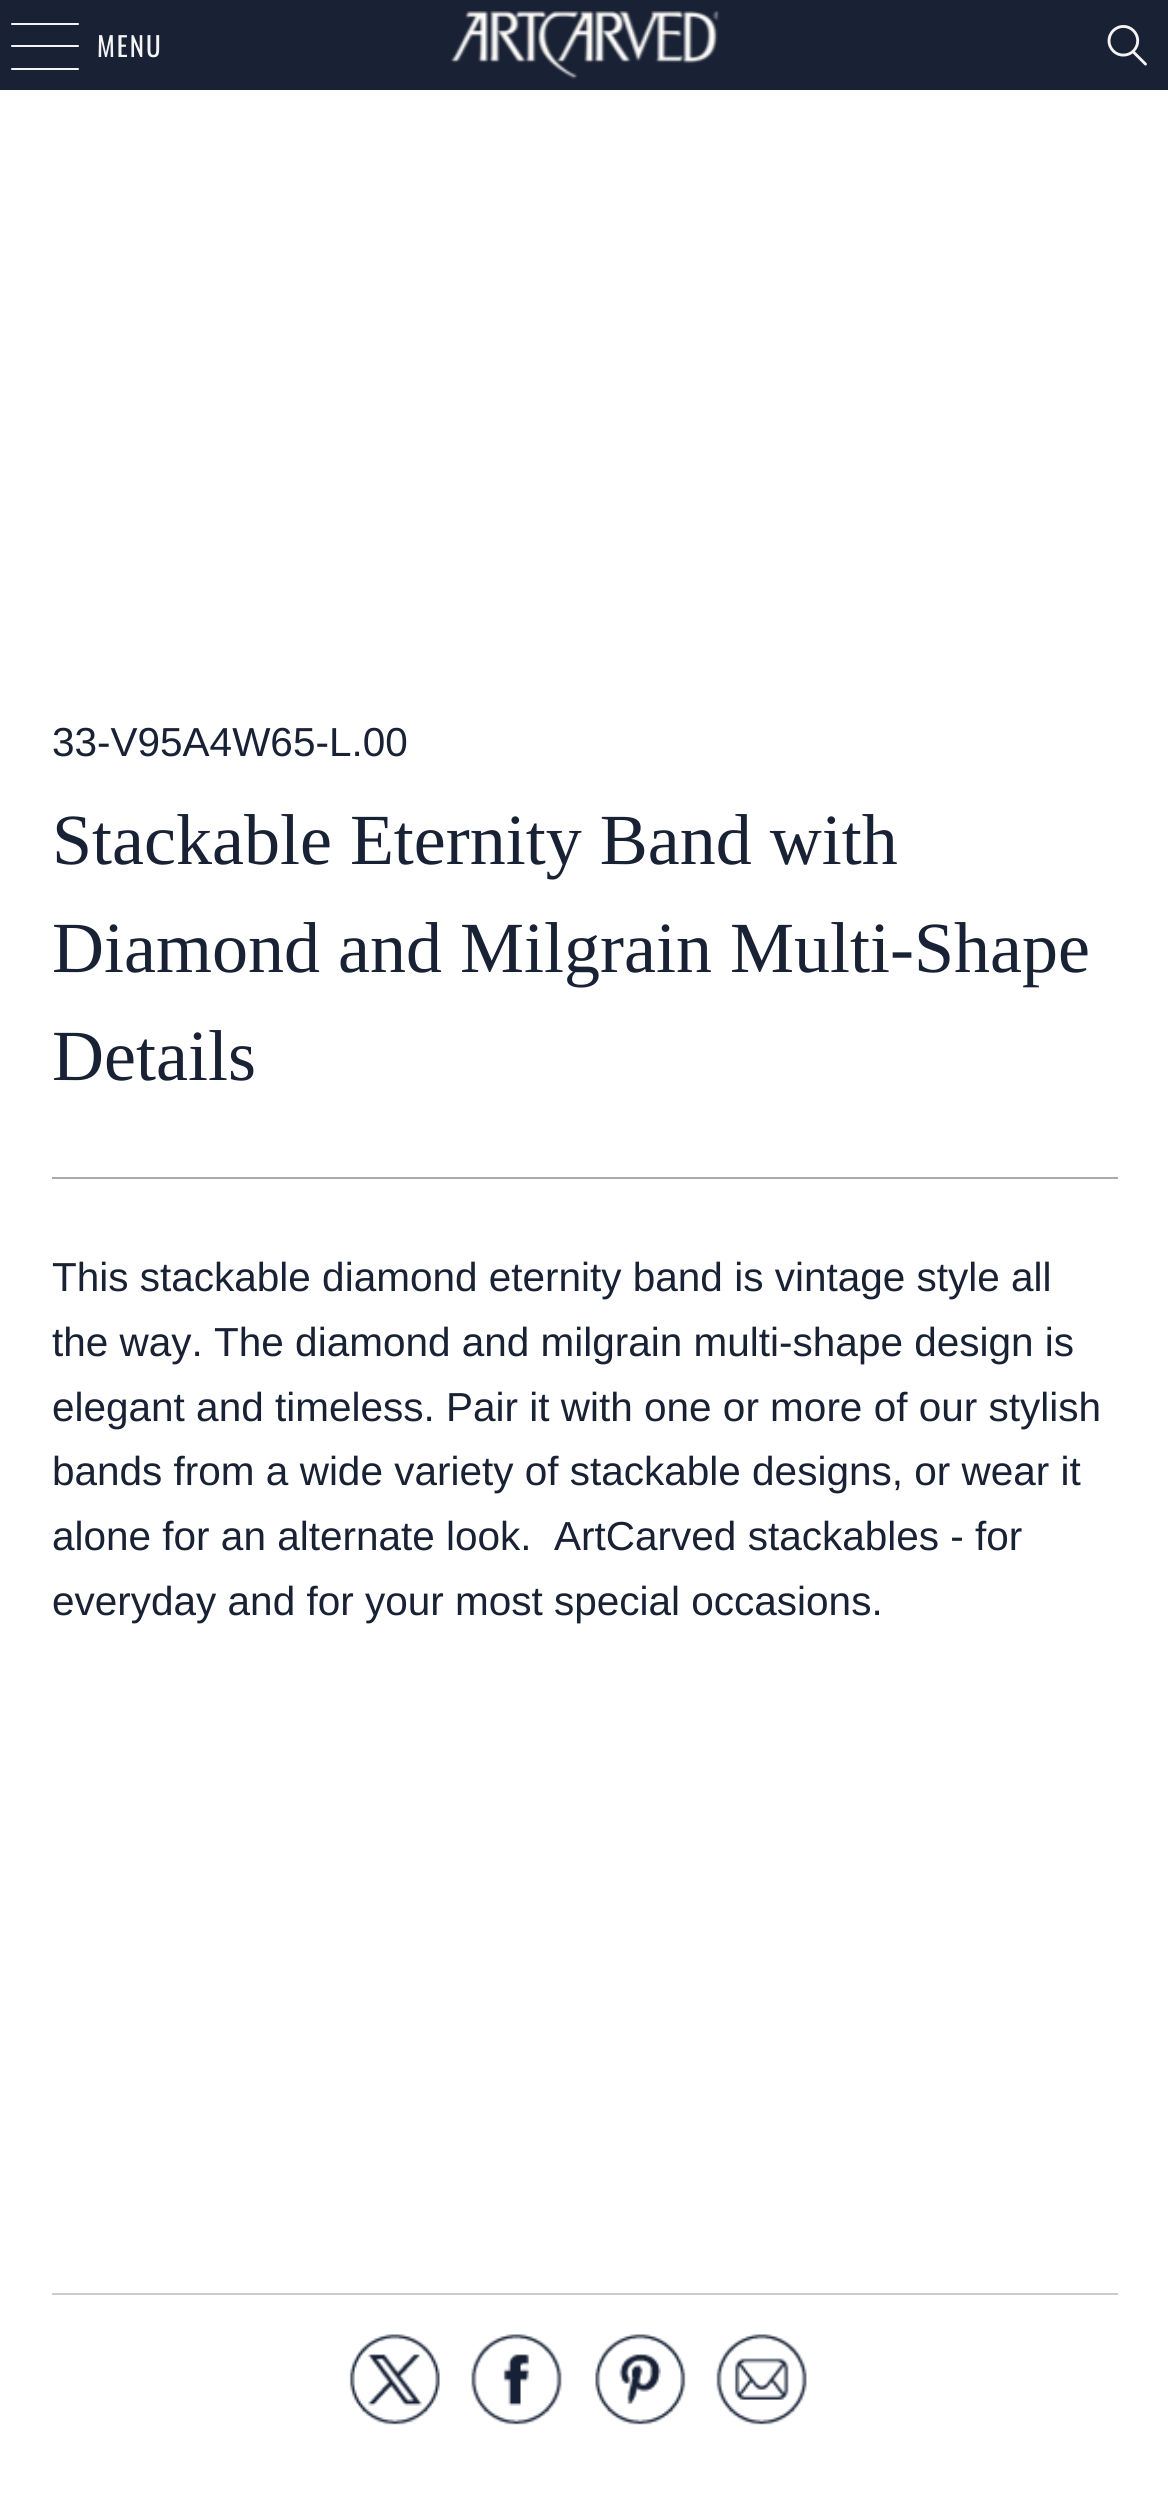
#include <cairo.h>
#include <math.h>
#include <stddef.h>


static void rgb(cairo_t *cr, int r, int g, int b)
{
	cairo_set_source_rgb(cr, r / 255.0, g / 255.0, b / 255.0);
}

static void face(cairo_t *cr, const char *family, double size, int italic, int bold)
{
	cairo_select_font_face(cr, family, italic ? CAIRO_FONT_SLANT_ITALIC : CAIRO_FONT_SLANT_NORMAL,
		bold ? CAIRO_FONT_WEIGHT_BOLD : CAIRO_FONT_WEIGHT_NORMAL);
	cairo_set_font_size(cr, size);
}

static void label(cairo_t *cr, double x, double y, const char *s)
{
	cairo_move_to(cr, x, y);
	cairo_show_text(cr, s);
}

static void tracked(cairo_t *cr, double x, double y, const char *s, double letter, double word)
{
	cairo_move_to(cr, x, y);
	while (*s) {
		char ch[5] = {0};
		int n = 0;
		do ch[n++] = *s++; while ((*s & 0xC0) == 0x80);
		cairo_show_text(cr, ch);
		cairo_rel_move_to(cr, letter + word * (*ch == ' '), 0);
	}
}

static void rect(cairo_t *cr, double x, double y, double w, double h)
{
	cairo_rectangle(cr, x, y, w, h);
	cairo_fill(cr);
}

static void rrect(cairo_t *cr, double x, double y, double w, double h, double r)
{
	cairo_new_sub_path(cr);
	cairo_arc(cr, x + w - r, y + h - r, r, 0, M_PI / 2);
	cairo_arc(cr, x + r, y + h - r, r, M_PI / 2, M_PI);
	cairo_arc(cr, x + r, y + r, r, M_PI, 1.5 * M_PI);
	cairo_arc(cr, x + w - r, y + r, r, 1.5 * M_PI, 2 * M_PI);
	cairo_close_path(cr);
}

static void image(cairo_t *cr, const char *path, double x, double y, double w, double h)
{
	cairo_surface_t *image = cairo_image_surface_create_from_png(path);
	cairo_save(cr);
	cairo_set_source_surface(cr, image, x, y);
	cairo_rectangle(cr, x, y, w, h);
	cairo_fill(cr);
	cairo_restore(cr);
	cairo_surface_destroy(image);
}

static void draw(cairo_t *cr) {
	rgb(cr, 255, 255, 255);
	cairo_paint(cr);
	rgb(cr, 25, 33, 52);
	rect(cr, 0, 0, 1168, 90);
	rgb(cr, 244, 244, 244);
	rrect(cr, 11, 23, 68, 2, 1);
	cairo_fill(cr);
	rrect(cr, 11, 45, 68, 2, 1);
	cairo_fill(cr);
	rrect(cr, 11, 68, 68, 2, 1);
	cairo_fill(cr);
	face(cr, "Oswald", 27, 0, 0);
	tracked(cr, 97, 57, "MENU", 2, 0);
	image(cr, "image0.png", 451, 11, 269, 68);
	image(cr, "image1.png", 1107, 25, 40, 41);
	face(cr, "Liberation Sans", 40.5, 0, 0);
	rgb(cr, 25, 33, 52);
	label(cr, 52, 756, "33-V95A4W65-L.00");
	face(cr, "Liberation Serif", 72, 0, 0);
	label(cr, 52, 864, "Stackable Eternity Band with");
	label(cr, 52, 972, "Diamond and Milgrain Multi-Shape");
	label(cr, 52, 1080, "Details");
	rgb(cr, 170, 170, 170);
	rect(cr, 52, 1177, 1066, 2);
	face(cr, "Liberation Sans", 40.5, 0, 0);
	rgb(cr, 25, 33, 52);
	label(cr, 52, 1291, "This stackable diamond eternity band is vintage style all");
	label(cr, 52, 1356, "the way. The diamond and milgrain multi-shape design is");
	label(cr, 52, 1421, "elegant and timeless. Pair it with one or more of our stylish");
	label(cr, 52, 1485, "bands from a wide variety of stackable designs, or wear it");
	label(cr, 52, 1550, "alone for an alternate look.  ArtCarved stackables - for");
	label(cr, 52, 1615, "everyday and for your most special occasions.");
	rgb(cr, 204, 204, 204);
	rect(cr, 52, 2293, 1066, 2);
	image(cr, "image2.png", 349, 2334, 91, 91);
	image(cr, "image3.png", 471, 2334, 91, 91);
	image(cr, "image4.png", 595, 2334, 91, 91);
	image(cr, "image5.png", 716, 2334, 91, 91);
}

int main(void) {
	cairo_surface_t *surface = cairo_image_surface_create(CAIRO_FORMAT_RGB24, 1168, 2497);
	cairo_t *cr = cairo_create(surface);
	cairo_font_options_t *options = cairo_font_options_create();
	cairo_font_options_set_hint_metrics(options, CAIRO_HINT_METRICS_OFF);
	cairo_font_options_set_hint_style(options, CAIRO_HINT_STYLE_NONE);
	cairo_set_font_options(cr, options);
	cairo_set_miter_limit(cr, 4);
	draw(cr);
	cairo_surface_write_to_png(surface, "render.png");
	cairo_font_options_destroy(options);
	cairo_destroy(cr);
	cairo_surface_destroy(surface);
	return 0;
}
